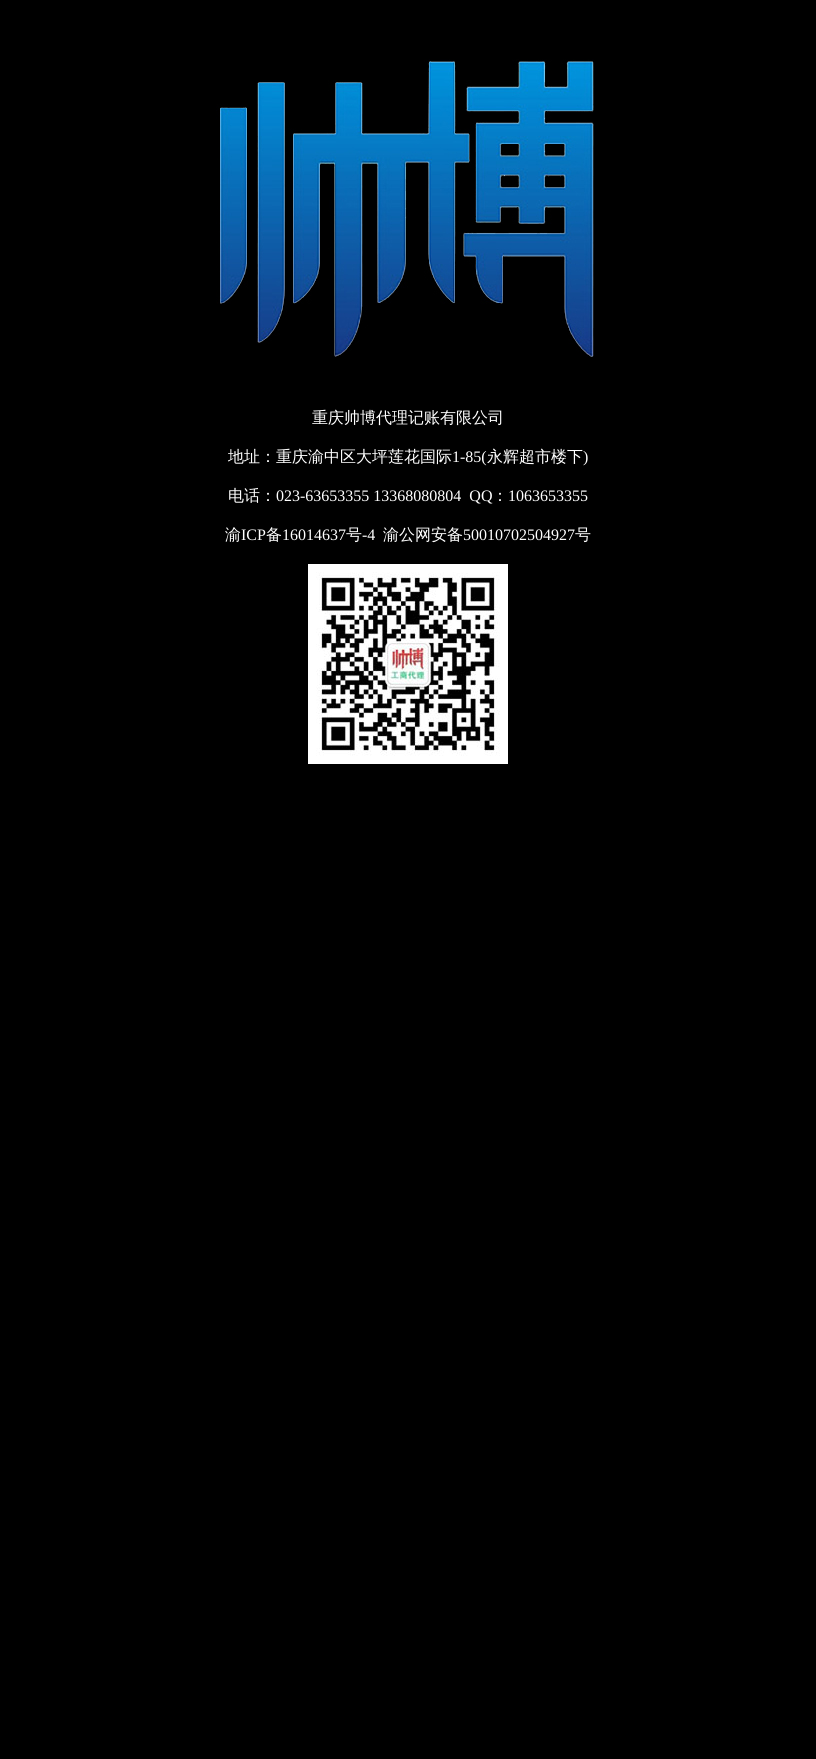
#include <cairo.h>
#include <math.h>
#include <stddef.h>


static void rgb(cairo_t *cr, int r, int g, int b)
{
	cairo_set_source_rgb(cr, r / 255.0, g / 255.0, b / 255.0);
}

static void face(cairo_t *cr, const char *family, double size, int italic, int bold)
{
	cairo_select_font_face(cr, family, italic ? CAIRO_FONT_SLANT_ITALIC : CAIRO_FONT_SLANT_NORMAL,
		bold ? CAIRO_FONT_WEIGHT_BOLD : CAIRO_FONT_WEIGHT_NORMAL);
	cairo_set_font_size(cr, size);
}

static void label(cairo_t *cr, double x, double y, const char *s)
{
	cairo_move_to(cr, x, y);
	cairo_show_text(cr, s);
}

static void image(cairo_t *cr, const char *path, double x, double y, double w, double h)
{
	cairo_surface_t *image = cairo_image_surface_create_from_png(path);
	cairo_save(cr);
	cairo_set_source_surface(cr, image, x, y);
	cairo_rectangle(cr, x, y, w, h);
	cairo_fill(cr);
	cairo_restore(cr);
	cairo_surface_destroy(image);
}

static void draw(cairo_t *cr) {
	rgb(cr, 0, 0, 0);
	cairo_paint(cr);
	image(cr, "image0.png", 216, 59, 378, 298);
	face(cr, "WenQuanYi Zen Hei Medium", 16, 0, 0);
	rgb(cr, 255, 255, 255);
	label(cr, 312, 423, "重庆帅博代理记账有限公司");
	label(cr, 228, 462, "地址：重庆渝中区大坪莲花国际");
	face(cr, "Liberation Serif", 16, 0, 0);
	label(cr, 452, 462, "1-85(");
	face(cr, "WenQuanYi Zen Hei Medium", 16, 0, 0);
	label(cr, 487, 462, "永辉超市楼下");
	face(cr, "Liberation Serif", 16, 0, 0);
	label(cr, 583, 462, ")");
	face(cr, "WenQuanYi Zen Hei Medium", 16, 0, 0);
	label(cr, 228, 501, "电话：");
	face(cr, "Liberation Serif", 16, 0, 0);
	label(cr, 276, 501, "023-63653355 13368080804  QQ");
	face(cr, "WenQuanYi Zen Hei Medium", 16, 0, 0);
	label(cr, 492, 501, "：");
	face(cr, "Liberation Serif", 16, 0, 0);
	label(cr, 508, 501, "1063653355");
	face(cr, "WenQuanYi Zen Hei Medium", 16, 0, 0);
	label(cr, 225, 540, "渝");
	face(cr, "Liberation Serif", 16, 0, 0);
	label(cr, 241, 540, "ICP");
	face(cr, "WenQuanYi Zen Hei Medium", 16, 0, 0);
	label(cr, 266, 540, "备");
	face(cr, "Liberation Serif", 16, 0, 0);
	label(cr, 282, 540, "16014637");
	face(cr, "WenQuanYi Zen Hei Medium", 16, 0, 0);
	label(cr, 346, 540, "号");
	face(cr, "Liberation Serif", 16, 0, 0);
	label(cr, 362, 540, "-4");
	face(cr, "WenQuanYi Zen Hei Medium", 16, 0, 0);
	label(cr, 383, 540, "渝公网安备");
	face(cr, "Liberation Serif", 16, 0, 0);
	label(cr, 463, 540, "50010702504927");
	face(cr, "WenQuanYi Zen Hei Medium", 16, 0, 0);
	label(cr, 575, 540, "号");
	image(cr, "image1.png", 308, 564, 200, 200);
}

int main(void) {
	cairo_surface_t *surface = cairo_image_surface_create(CAIRO_FORMAT_RGB24, 816, 1759);
	cairo_t *cr = cairo_create(surface);
	cairo_font_options_t *options = cairo_font_options_create();
	cairo_font_options_set_hint_metrics(options, CAIRO_HINT_METRICS_OFF);
	cairo_font_options_set_hint_style(options, CAIRO_HINT_STYLE_NONE);
	cairo_set_font_options(cr, options);
	cairo_set_miter_limit(cr, 4);
	draw(cr);
	cairo_surface_write_to_png(surface, "render.png");
	cairo_font_options_destroy(options);
	cairo_destroy(cr);
	cairo_surface_destroy(surface);
	return 0;
}
